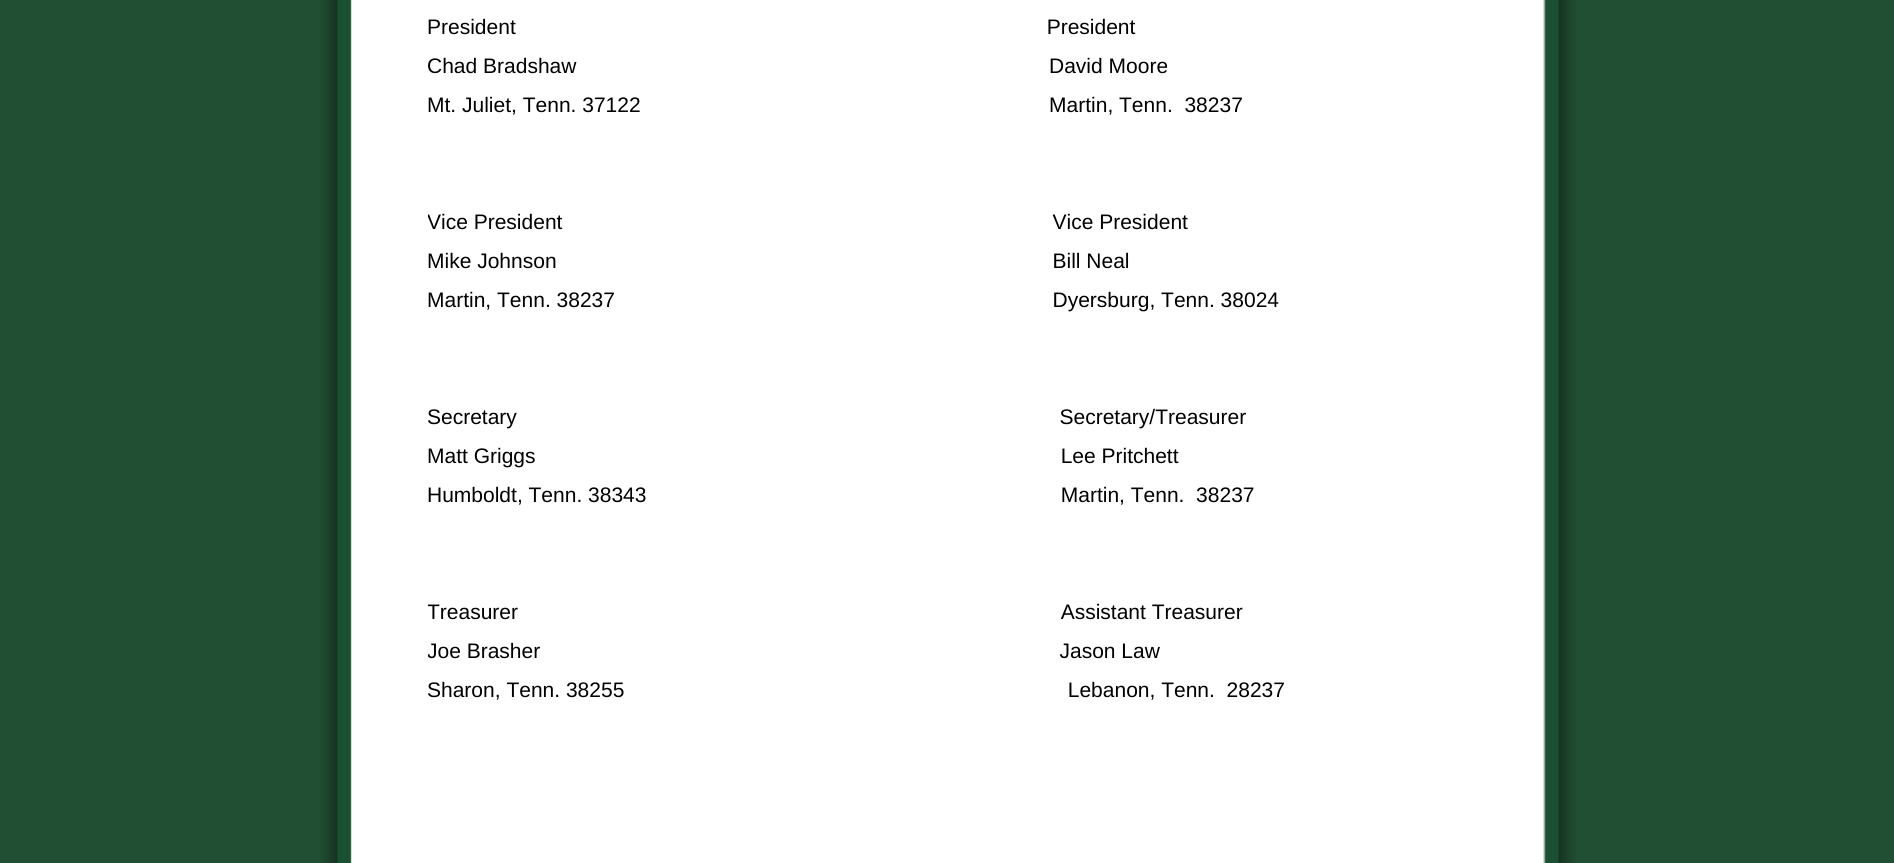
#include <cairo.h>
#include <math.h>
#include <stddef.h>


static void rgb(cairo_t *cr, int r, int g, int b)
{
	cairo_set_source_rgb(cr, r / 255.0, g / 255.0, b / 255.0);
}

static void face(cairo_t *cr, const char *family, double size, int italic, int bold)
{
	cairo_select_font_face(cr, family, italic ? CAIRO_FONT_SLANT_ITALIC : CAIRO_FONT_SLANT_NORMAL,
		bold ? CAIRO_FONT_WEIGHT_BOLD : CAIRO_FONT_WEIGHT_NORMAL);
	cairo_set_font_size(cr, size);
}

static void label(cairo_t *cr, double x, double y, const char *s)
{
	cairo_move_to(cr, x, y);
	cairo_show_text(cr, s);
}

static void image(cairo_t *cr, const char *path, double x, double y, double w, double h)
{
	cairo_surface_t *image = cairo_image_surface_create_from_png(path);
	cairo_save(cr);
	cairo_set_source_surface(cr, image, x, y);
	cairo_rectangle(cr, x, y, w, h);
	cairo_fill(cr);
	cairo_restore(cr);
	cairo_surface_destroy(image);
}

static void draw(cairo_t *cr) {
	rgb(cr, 33, 79, 52);
	cairo_paint(cr);
	image(cr, "image0.png", 320, 0, 1256, 863);
	face(cr, "Liberation Sans", 21, 0, 0);
	rgb(cr, 0, 0, 0);
	label(cr, 427, 34, "President                                                                                           President");
	cairo_save(cr);
	cairo_rectangle(cr, 428, 0, 1039, 831);
	cairo_clip(cr);
	label(cr, 427, 73, "Chad Bradshaw                                                                                 David Moore");
	cairo_restore(cr);
	label(cr, 427, 112, "Mt. Juliet, Tenn. 37122                                                                      Martin, Tenn.  38237");
	cairo_save(cr);
	cairo_rectangle(cr, 428, 0, 1039, 831);
	cairo_clip(cr);
	label(cr, 427, 229, "Vice President                                                                                    Vice President");
	cairo_restore(cr);
	label(cr, 427, 268, "Mike Johnson                                                                                     Bill Neal");
	label(cr, 427, 307, "Martin, Tenn. 38237                                                                           Dyersburg, Tenn. 38024");
	label(cr, 427, 424, "Secretary                                                                                             Secretary/Treasurer");
	label(cr, 427, 463, "Matt Griggs                                                                                          Lee Pritchett");
	label(cr, 427, 502, "Humboldt, Tenn. 38343                                                                       Martin, Tenn.  38237");
	cairo_save(cr);
	cairo_rectangle(cr, 428, 0, 1039, 831);
	cairo_clip(cr);
	label(cr, 427, 619, "Treasurer                                                                                             Assistant Treasurer");
	label(cr, 427, 658, "Joe Brasher                                                                                         Jason Law");
	cairo_restore(cr);
	label(cr, 427, 697, "Sharon, Tenn. 38255                                                                            Lebanon, Tenn.  28237");
}

int main(void) {
	cairo_surface_t *surface = cairo_image_surface_create(CAIRO_FORMAT_RGB24, 1894, 863);
	cairo_t *cr = cairo_create(surface);
	cairo_font_options_t *options = cairo_font_options_create();
	cairo_font_options_set_hint_metrics(options, CAIRO_HINT_METRICS_OFF);
	cairo_font_options_set_hint_style(options, CAIRO_HINT_STYLE_NONE);
	cairo_set_font_options(cr, options);
	cairo_set_miter_limit(cr, 4);
	draw(cr);
	cairo_surface_write_to_png(surface, "render.png");
	cairo_font_options_destroy(options);
	cairo_destroy(cr);
	cairo_surface_destroy(surface);
	return 0;
}
